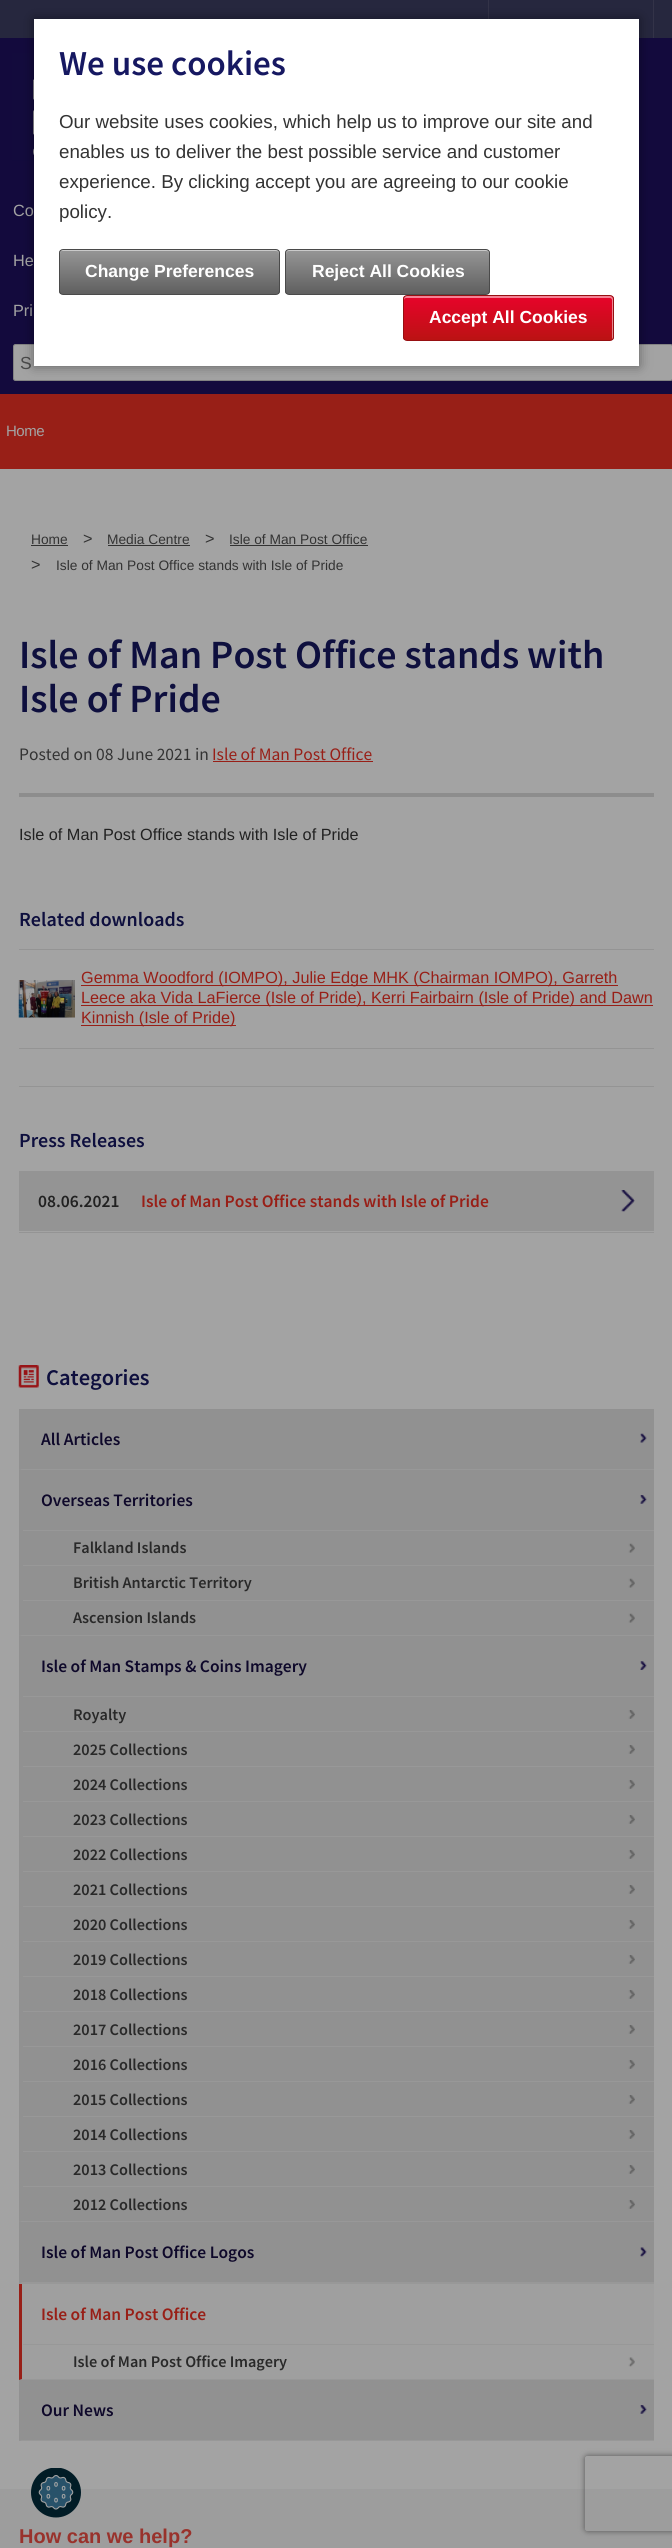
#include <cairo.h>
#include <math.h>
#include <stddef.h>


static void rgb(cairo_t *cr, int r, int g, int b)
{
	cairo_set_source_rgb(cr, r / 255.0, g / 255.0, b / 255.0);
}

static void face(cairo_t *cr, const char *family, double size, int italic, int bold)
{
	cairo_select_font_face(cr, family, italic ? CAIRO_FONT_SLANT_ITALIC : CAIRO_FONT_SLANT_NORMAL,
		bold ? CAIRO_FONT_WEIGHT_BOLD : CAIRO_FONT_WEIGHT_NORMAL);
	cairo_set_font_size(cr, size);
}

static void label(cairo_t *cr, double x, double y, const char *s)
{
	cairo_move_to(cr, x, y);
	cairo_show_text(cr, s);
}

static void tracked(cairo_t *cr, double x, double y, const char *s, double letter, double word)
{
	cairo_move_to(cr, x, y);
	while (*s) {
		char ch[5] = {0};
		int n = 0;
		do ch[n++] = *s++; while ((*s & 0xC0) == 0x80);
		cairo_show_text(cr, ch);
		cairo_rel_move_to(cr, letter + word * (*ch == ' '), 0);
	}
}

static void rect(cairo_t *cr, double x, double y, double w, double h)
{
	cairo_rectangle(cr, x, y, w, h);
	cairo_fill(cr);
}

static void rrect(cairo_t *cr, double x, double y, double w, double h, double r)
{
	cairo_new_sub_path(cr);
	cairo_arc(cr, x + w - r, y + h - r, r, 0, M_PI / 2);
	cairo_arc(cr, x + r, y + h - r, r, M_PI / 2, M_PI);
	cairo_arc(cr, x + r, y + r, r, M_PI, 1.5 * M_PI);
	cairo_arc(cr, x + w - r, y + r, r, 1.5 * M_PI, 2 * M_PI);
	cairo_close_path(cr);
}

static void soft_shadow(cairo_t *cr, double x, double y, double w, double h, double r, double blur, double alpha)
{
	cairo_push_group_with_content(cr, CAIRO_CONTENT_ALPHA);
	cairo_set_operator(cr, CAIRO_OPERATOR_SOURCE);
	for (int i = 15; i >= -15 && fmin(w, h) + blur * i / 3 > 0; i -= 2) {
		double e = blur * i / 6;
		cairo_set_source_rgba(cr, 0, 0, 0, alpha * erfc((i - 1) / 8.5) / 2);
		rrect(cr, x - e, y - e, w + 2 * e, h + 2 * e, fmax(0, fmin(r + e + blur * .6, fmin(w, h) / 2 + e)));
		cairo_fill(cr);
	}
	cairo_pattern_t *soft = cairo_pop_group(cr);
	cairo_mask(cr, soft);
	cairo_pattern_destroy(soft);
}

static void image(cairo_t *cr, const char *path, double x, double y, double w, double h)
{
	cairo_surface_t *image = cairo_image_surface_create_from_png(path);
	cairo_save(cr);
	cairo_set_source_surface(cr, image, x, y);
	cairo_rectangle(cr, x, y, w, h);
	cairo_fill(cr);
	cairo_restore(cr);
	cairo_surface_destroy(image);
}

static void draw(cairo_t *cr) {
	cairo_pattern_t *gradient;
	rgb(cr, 163, 163, 163);
	cairo_paint(cr);
	rgb(cr, 38, 39, 62);
	rect(cr, 0, 0, 672, 38);
	rgb(cr, 51, 51, 72);
	rect(cr, 488, 0, 1, 19);
	rect(cr, 653, 0, 1, 38);
	rgb(cr, 19, 10, 61);
	rect(cr, 0, 38, 672, 356);
	image(cr, "image0.png", 12, 53, 22, 114);
	face(cr, "Liberation Sans", 16.25, 0, 0);
	rgb(cr, 163, 163, 163);
	label(cr, 13, 216, "Co");
	label(cr, 13, 266, "He");
	label(cr, 13, 316, "Pri");
	rrect(cr, 13.5, 344.5, 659, 36, 2);
	cairo_fill_preserve(cr);
	rgb(cr, 131, 131, 131);
	cairo_set_line_width(cr, 1);
	cairo_stroke(cr);
	face(cr, "Liberation Sans", 17.5, 0, 0);
	rgb(cr, 75, 75, 75);
	label(cr, 20, 369, "S");
	rgb(cr, 152, 31, 23);
	rect(cr, 0, 394, 672, 75);
	face(cr, "Liberation Sans", 15, 0, 0);
	rgb(cr, 163, 163, 163);
	tracked(cr, 6, 436, "Home", -0.5, 0);
	rgb(cr, 0, 0, 0);
	soft_shadow(cr, 34, 19, 605, 347, 0, 6, 0.4);
	rgb(cr, 255, 255, 255);
	rect(cr, 34, 19, 605, 347);
	face(cr, "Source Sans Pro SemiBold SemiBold", 35, 0, 0);
	rgb(cr, 22, 24, 97);
	label(cr, 59, 75, "We use cookies");
	face(cr, "Liberation Sans", 18.75, 0, 0);
	rgb(cr, 51, 51, 51);
	label(cr, 59, 128, "Our website uses cookies, which help us to improve our site and");
	label(cr, 59, 158, "enables us to deliver the best possible service and customer");
	label(cr, 59, 188, "experience. By clicking accept you are agreeing to our cookie");
	label(cr, 59, 218, "policy.");
	cairo_save(cr);
	rrect(cr, 59, 249, 221, 46, 4);
	cairo_clip(cr);
	gradient = cairo_pattern_create_linear(169, 250, 169, 294);
	cairo_pattern_add_color_stop_rgba(gradient, 0, 0.588, 0.588, 0.588, 1);
	cairo_pattern_add_color_stop_rgba(gradient, 1, 0.373, 0.373, 0.373, 1);
	cairo_set_source(cr, gradient);
	cairo_pattern_destroy(gradient);
	rect(cr, 59, 250, 221, 44);
	cairo_restore(cr);
	rgb(cr, 202, 202, 202);
	cairo_new_path(cr);
	cairo_move_to(cr, 62, 251);
	cairo_line_to(cr, 276, 251);
	cairo_curve_to(cr, 278, 251, 279, 252, 279, 254);
	cairo_line_to(cr, 279, 252);
	cairo_curve_to(cr, 279, 251, 278, 250, 276, 250);
	cairo_line_to(cr, 62, 250);
	cairo_curve_to(cr, 61, 250, 60, 251, 60, 252);
	cairo_line_to(cr, 60, 254);
	cairo_curve_to(cr, 60, 252, 61, 251, 62, 251);
	cairo_close_path(cr);
	cairo_fill(cr);
	rrect(cr, 59.5, 249.5, 220, 45, 3.5);
	rgb(cr, 74, 74, 74);
	cairo_stroke(cr);
	face(cr, "Liberation Sans", 17.5, 0, 1);
	rgb(cr, 255, 255, 255);
	label(cr, 85, 277, "Change Preferences");
	cairo_save(cr);
	rrect(cr, 285, 249, 205, 46, 4);
	cairo_clip(cr);
	gradient = cairo_pattern_create_linear(387, 250, 387, 294);
	cairo_pattern_add_color_stop_rgba(gradient, 0, 0.588, 0.588, 0.588, 1);
	cairo_pattern_add_color_stop_rgba(gradient, 1, 0.373, 0.373, 0.373, 1);
	cairo_set_source(cr, gradient);
	cairo_pattern_destroy(gradient);
	rect(cr, 285, 250, 205, 44);
	cairo_restore(cr);
	rgb(cr, 202, 202, 202);
	cairo_new_path(cr);
	cairo_move_to(cr, 289, 251);
	cairo_line_to(cr, 486, 251);
	cairo_curve_to(cr, 488, 251, 489, 252, 489, 254);
	cairo_line_to(cr, 489, 252);
	cairo_curve_to(cr, 489, 251, 488, 250, 486, 250);
	cairo_line_to(cr, 288, 250);
	cairo_curve_to(cr, 287, 250, 286, 251, 286, 252);
	cairo_line_to(cr, 286, 254);
	cairo_curve_to(cr, 286, 252, 287, 251, 289, 251);
	cairo_close_path(cr);
	cairo_fill(cr);
	rrect(cr, 285.5, 249.5, 204, 45, 3.5);
	rgb(cr, 74, 74, 74);
	cairo_stroke(cr);
	rgb(cr, 255, 255, 255);
	label(cr, 312, 277, "Reject All Cookies");
	cairo_save(cr);
	rrect(cr, 403, 295, 211, 46, 4);
	cairo_clip(cr);
	gradient = cairo_pattern_create_linear(508, 296, 508, 340);
	cairo_pattern_add_color_stop_rgba(gradient, 0, 0.91, 0.012, 0.165, 1);
	cairo_pattern_add_color_stop_rgba(gradient, 1, 0.733, 0.071, 0.075, 1);
	cairo_set_source(cr, gradient);
	cairo_pattern_destroy(gradient);
	rect(cr, 403, 296, 211, 44);
	cairo_restore(cr);
	cairo_set_source_rgba(cr, 1, 1, 1, 0.5);
	cairo_new_path(cr);
	cairo_move_to(cr, 406, 298);
	cairo_line_to(cr, 610, 298);
	cairo_curve_to(cr, 611, 298, 612, 299, 612, 300);
	cairo_line_to(cr, 612, 340);
	cairo_curve_to(cr, 613, 339, 613, 338, 613, 338);
	cairo_line_to(cr, 613, 298);
	cairo_curve_to(cr, 613, 297, 612, 296, 610, 296);
	cairo_line_to(cr, 406, 296);
	cairo_curve_to(cr, 405, 296, 404, 297, 404, 298);
	cairo_line_to(cr, 404, 300);
	cairo_curve_to(cr, 404, 299, 405, 298, 406, 298);
	cairo_close_path(cr);
	cairo_fill(cr);
	rrect(cr, 403.5, 295.5, 210, 45, 3.5);
	rgb(cr, 151, 15, 18);
	cairo_stroke(cr);
	rgb(cr, 255, 255, 255);
	label(cr, 429, 323, "Accept All Cookies");
	face(cr, "Liberation Sans", 13.75, 0, 0);
	rgb(cr, 51, 51, 51);
	label(cr, 31, 544, "Home");
	rect(cr, 31, 545, 37, 1);
	face(cr, "Liberation Sans", 16.25, 0, 0);
	label(cr, 83, 544, ">");
	face(cr, "Liberation Sans", 13.75, 0, 0);
	label(cr, 107, 544, "Media Centre");
	rect(cr, 108, 545, 82, 1);
	face(cr, "Liberation Sans", 16.25, 0, 0);
	label(cr, 205, 544, ">");
	face(cr, "Liberation Sans", 13.75, 0, 0);
	label(cr, 229, 544, "Isle of Man Post Office");
	rect(cr, 230, 545, 138, 1);
	face(cr, "Liberation Sans", 16.25, 0, 0);
	label(cr, 31, 570, ">");
	face(cr, "Liberation Sans", 13.75, 0, 0);
	label(cr, 56, 570, "Isle of Man Post Office stands with Isle of Pride");
	face(cr, "Source Sans Pro SemiBold SemiBold", 40, 0, 0);
	rgb(cr, 14, 15, 62);
	label(cr, 19, 668, "Isle of Man Post Office stands with");
	label(cr, 19, 712, "Isle of Pride");
	face(cr, "Source Sans Pro", 17.5, 0, 0);
	rgb(cr, 51, 51, 51);
	label(cr, 19, 760, "Posted on 08 June 2021 in");
	rgb(cr, 152, 31, 23);
	label(cr, 212, 760, "Isle of Man Post Office");
	rect(cr, 213, 761, 160, 1);
	rgb(cr, 141, 141, 141);
	rect(cr, 19, 793, 635, 4);
	face(cr, "Liberation Sans", 16.25, 0, 0);
	rgb(cr, 33, 33, 33);
	label(cr, 19, 840, "Isle of Man Post Office stands with Isle of Pride");
	face(cr, "Source Sans Pro SemiBold SemiBold", 20, 0, 0);
	rgb(cr, 14, 15, 62);
	label(cr, 19, 926, "Related downloads");
	image(cr, "image1.png", 18, 980, 57, 38);
	rgb(cr, 148, 148, 148);
	rect(cr, 19, 949, 635, 1);
	rect(cr, 19, 1048, 635, 1);
	rgb(cr, 152, 31, 23);
	rect(cr, 81, 985, 537, 1);
	face(cr, "Liberation Sans", 16.25, 0, 0);
	label(cr, 81, 983, "Gemma Woodford (IOMPO), Julie Edge MHK (Chairman IOMPO), Garreth");
	rect(cr, 81, 1005, 572, 1);
	label(cr, 81, 1003, "Leece aka Vida LaFierce (Isle of Pride), Kerri Fairbairn (Isle of Pride) and Dawn");
	rect(cr, 81, 1025, 155, 1);
	label(cr, 81, 1023, "Kinnish (Isle of Pride)");
	rgb(cr, 148, 148, 148);
	rect(cr, 19, 1086, 635, 1);
	face(cr, "Source Sans Pro SemiBold SemiBold", 20, 0, 0);
	rgb(cr, 14, 15, 62);
	label(cr, 19, 1147, "Press Releases");
	rgb(cr, 148, 148, 148);
	rect(cr, 19, 1171, 635, 62);
	rgb(cr, 163, 163, 163);
	rect(cr, 19, 1231, 635, 1);
	image(cr, "image2.png", 621, 1190, 14, 22);
	face(cr, "Source Sans Pro SemiBold SemiBold", 17.5, 0, 0);
	rgb(cr, 33, 33, 33);
	label(cr, 38, 1207, "08.06.2021");
	rgb(cr, 152, 31, 23);
	label(cr, 141, 1207, "Isle of Man Post Office stands with Isle of Pride");
	image(cr, "image3.png", 18, 1365, 21, 23);
	face(cr, "Source Sans Pro SemiBold SemiBold", 22.5, 0, 0);
	rgb(cr, 14, 15, 62);
	label(cr, 46, 1385, "Categories");
	rgb(cr, 145, 145, 145);
	rect(cr, 19, 1409, 635, 875);
	rgb(cr, 152, 152, 152);
	cairo_new_path(cr);
	cairo_move_to(cr, 654, 1470);
	cairo_line_to(cr, 19, 1470);
	cairo_line_to(cr, 22, 1469);
	cairo_line_to(cr, 654, 1469);
	cairo_close_path(cr);
	cairo_fill(cr);
	image(cr, "image4.png", 640, 1433, 7, 10);
	face(cr, "Source Sans Pro SemiBold SemiBold", 17.5, 0, 0);
	rgb(cr, 14, 8, 42);
	label(cr, 41, 1445, "All Articles");
	rgb(cr, 152, 152, 152);
	cairo_new_path(cr);
	cairo_move_to(cr, 654, 1636);
	cairo_line_to(cr, 19, 1636);
	cairo_line_to(cr, 22, 1635);
	cairo_line_to(cr, 654, 1635);
	cairo_close_path(cr);
	cairo_fill(cr);
	image(cr, "image5.png", 640, 1495, 7, 9);
	rgb(cr, 14, 8, 42);
	label(cr, 41, 1506, "Overseas Territories");
	rgb(cr, 152, 152, 152);
	rect(cr, 23, 1530, 631, 1);
	image(cr, "image6.png", 628, 1543, 7, 10);
	face(cr, "Source Sans Pro SemiBold SemiBold", 16.25, 0, 0);
	rgb(cr, 41, 41, 41);
	label(cr, 73, 1553, "Falkland Islands");
	rgb(cr, 152, 152, 152);
	rect(cr, 23, 1565, 631, 1);
	image(cr, "image6.png", 628, 1578, 7, 10);
	rgb(cr, 41, 41, 41);
	label(cr, 73, 1588, "British Antarctic Territory");
	rgb(cr, 152, 152, 152);
	rect(cr, 23, 1600, 631, 1);
	image(cr, "image6.png", 628, 1613, 7, 10);
	rgb(cr, 41, 41, 41);
	label(cr, 73, 1623, "Ascension Islands");
	rgb(cr, 152, 152, 152);
	cairo_new_path(cr);
	cairo_move_to(cr, 654, 2222);
	cairo_line_to(cr, 19, 2222);
	cairo_line_to(cr, 22, 2221);
	cairo_line_to(cr, 654, 2221);
	cairo_close_path(cr);
	cairo_fill(cr);
	image(cr, "image7.png", 640, 1661, 7, 9);
	face(cr, "Source Sans Pro SemiBold SemiBold", 17.5, 0, 0);
	rgb(cr, 14, 8, 42);
	label(cr, 41, 1672, "Isle of Man Stamps & Coins Imagery");
	rgb(cr, 152, 152, 152);
	rect(cr, 23, 1696, 631, 1);
	image(cr, "image8.png", 628, 1710, 7, 9);
	face(cr, "Source Sans Pro SemiBold SemiBold", 16.25, 0, 0);
	rgb(cr, 41, 41, 41);
	label(cr, 73, 1720, "Royalty");
	rgb(cr, 152, 152, 152);
	rect(cr, 23, 1731, 631, 1);
	image(cr, "image8.png", 628, 1745, 7, 9);
	rgb(cr, 41, 41, 41);
	label(cr, 73, 1755, "2025 Collections");
	rgb(cr, 152, 152, 152);
	rect(cr, 23, 1766, 631, 1);
	image(cr, "image8.png", 628, 1780, 7, 9);
	rgb(cr, 41, 41, 41);
	label(cr, 73, 1790, "2024 Collections");
	rgb(cr, 152, 152, 152);
	rect(cr, 23, 1801, 631, 1);
	image(cr, "image8.png", 628, 1815, 7, 9);
	rgb(cr, 41, 41, 41);
	label(cr, 73, 1825, "2023 Collections");
	rgb(cr, 152, 152, 152);
	rect(cr, 23, 1836, 631, 1);
	image(cr, "image8.png", 628, 1850, 7, 9);
	rgb(cr, 41, 41, 41);
	label(cr, 73, 1860, "2022 Collections");
	rgb(cr, 152, 152, 152);
	rect(cr, 23, 1871, 631, 1);
	image(cr, "image8.png", 628, 1885, 7, 9);
	rgb(cr, 41, 41, 41);
	label(cr, 73, 1895, "2021 Collections");
	rgb(cr, 152, 152, 152);
	rect(cr, 23, 1906, 631, 1);
	image(cr, "image8.png", 628, 1920, 7, 9);
	rgb(cr, 41, 41, 41);
	label(cr, 73, 1930, "2020 Collections");
	rgb(cr, 152, 152, 152);
	rect(cr, 23, 1941, 631, 1);
	image(cr, "image8.png", 628, 1955, 7, 9);
	rgb(cr, 41, 41, 41);
	label(cr, 73, 1965, "2019 Collections");
	rgb(cr, 152, 152, 152);
	rect(cr, 23, 1976, 631, 1);
	image(cr, "image8.png", 628, 1990, 7, 9);
	rgb(cr, 41, 41, 41);
	label(cr, 73, 2000, "2018 Collections");
	rgb(cr, 152, 152, 152);
	rect(cr, 23, 2011, 631, 1);
	image(cr, "image8.png", 628, 2025, 7, 9);
	rgb(cr, 41, 41, 41);
	label(cr, 73, 2035, "2017 Collections");
	rgb(cr, 152, 152, 152);
	rect(cr, 23, 2046, 631, 1);
	image(cr, "image8.png", 628, 2060, 7, 9);
	rgb(cr, 41, 41, 41);
	label(cr, 73, 2070, "2016 Collections");
	rgb(cr, 152, 152, 152);
	rect(cr, 23, 2081, 631, 1);
	image(cr, "image8.png", 628, 2095, 7, 9);
	rgb(cr, 41, 41, 41);
	label(cr, 73, 2105, "2015 Collections");
	rgb(cr, 152, 152, 152);
	rect(cr, 23, 2116, 631, 1);
	image(cr, "image8.png", 628, 2130, 7, 9);
	rgb(cr, 41, 41, 41);
	label(cr, 73, 2140, "2014 Collections");
	rgb(cr, 152, 152, 152);
	rect(cr, 23, 2151, 631, 1);
	image(cr, "image8.png", 628, 2165, 7, 9);
	rgb(cr, 41, 41, 41);
	label(cr, 73, 2175, "2013 Collections");
	rgb(cr, 152, 152, 152);
	rect(cr, 23, 2186, 631, 1);
	image(cr, "image8.png", 628, 2200, 7, 9);
	rgb(cr, 41, 41, 41);
	label(cr, 73, 2210, "2012 Collections");
	rgb(cr, 152, 152, 152);
	cairo_new_path(cr);
	cairo_move_to(cr, 654, 2284);
	cairo_line_to(cr, 19, 2284);
	cairo_line_to(cr, 22, 2282);
	cairo_line_to(cr, 654, 2282);
	cairo_close_path(cr);
	cairo_fill(cr);
	image(cr, "image9.png", 640, 2247, 7, 10);
	face(cr, "Source Sans Pro SemiBold SemiBold", 17.5, 0, 0);
	rgb(cr, 14, 8, 42);
	label(cr, 41, 2258, "Isle of Man Post Office Logos");
	rgb(cr, 159, 159, 159);
	rect(cr, 19, 2284, 635, 96);
	rgb(cr, 152, 152, 152);
	cairo_new_path(cr);
	cairo_move_to(cr, 654, 2380);
	cairo_line_to(cr, 19, 2380);
	cairo_line_to(cr, 22, 2379);
	cairo_line_to(cr, 654, 2379);
	cairo_close_path(cr);
	cairo_fill(cr);
	rgb(cr, 152, 31, 23);
	cairo_new_path(cr);
	cairo_move_to(cr, 19, 2380);
	cairo_line_to(cr, 19, 2284);
	cairo_line_to(cr, 22, 2284);
	cairo_line_to(cr, 22, 2379);
	cairo_close_path(cr);
	cairo_fill(cr);
	label(cr, 41, 2320, "Isle of Man Post Office");
	rgb(cr, 152, 152, 152);
	rect(cr, 23, 2344, 631, 1);
	image(cr, "image10.png", 628, 2357, 7, 10);
	face(cr, "Source Sans Pro SemiBold SemiBold", 16.25, 0, 0);
	rgb(cr, 41, 41, 41);
	label(cr, 73, 2367, "Isle of Man Post Office Imagery");
	rgb(cr, 145, 145, 145);
	rect(cr, 19, 2380, 635, 61);
	rgb(cr, 152, 152, 152);
	cairo_new_path(cr);
	cairo_move_to(cr, 654, 2441);
	cairo_line_to(cr, 19, 2441);
	cairo_line_to(cr, 22, 2440);
	cairo_line_to(cr, 654, 2440);
	cairo_close_path(cr);
	cairo_fill(cr);
	image(cr, "image5.png", 640, 2405, 7, 9);
	face(cr, "Source Sans Pro SemiBold SemiBold", 17.5, 0, 0);
	rgb(cr, 14, 8, 42);
	label(cr, 41, 2416, "Our News");
	rgb(cr, 157, 157, 157);
	rect(cr, 0, 2489, 672, 59);
	image(cr, "image11.png", 31, 2468, 50, 50);
	cairo_save(cr);
	cairo_set_fill_rule(cr, CAIRO_FILL_RULE_EVEN_ODD);
	cairo_new_path(cr);
	cairo_move_to(cr, 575, 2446);
	cairo_line_to(cr, 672, 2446);
	cairo_line_to(cr, 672, 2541);
	cairo_line_to(cr, 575, 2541);
	cairo_close_path(cr);
	cairo_move_to(cr, 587.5, 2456);
	cairo_line_to(cr, 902.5, 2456);
	cairo_curve_to(cr, 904, 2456, 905, 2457, 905, 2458.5);
	cairo_line_to(cr, 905, 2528.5);
	cairo_curve_to(cr, 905, 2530, 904, 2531, 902.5, 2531);
	cairo_line_to(cr, 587.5, 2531);
	cairo_curve_to(cr, 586, 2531, 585, 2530, 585, 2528.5);
	cairo_line_to(cr, 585, 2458.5);
	cairo_curve_to(cr, 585, 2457, 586, 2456, 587.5, 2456);
	cairo_close_path(cr);
	cairo_clip(cr);
	rgb(cr, 82, 82, 82);
	soft_shadow(cr, 585, 2456, 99, 75, 2.5, 3, 1);
	cairo_restore(cr);
	face(cr, "Liberation Sans", 20, 0, 1);
	rgb(cr, 153, 50, 44);
	label(cr, 19, 2543, "How can we help?");
}

int main(void) {
	cairo_surface_t *surface = cairo_image_surface_create(CAIRO_FORMAT_RGB24, 672, 2548);
	cairo_t *cr = cairo_create(surface);
	cairo_font_options_t *options = cairo_font_options_create();
	cairo_font_options_set_hint_metrics(options, CAIRO_HINT_METRICS_OFF);
	cairo_font_options_set_hint_style(options, CAIRO_HINT_STYLE_NONE);
	cairo_set_font_options(cr, options);
	cairo_set_miter_limit(cr, 4);
	draw(cr);
	cairo_surface_write_to_png(surface, "render.png");
	cairo_font_options_destroy(options);
	cairo_destroy(cr);
	cairo_surface_destroy(surface);
	return 0;
}
